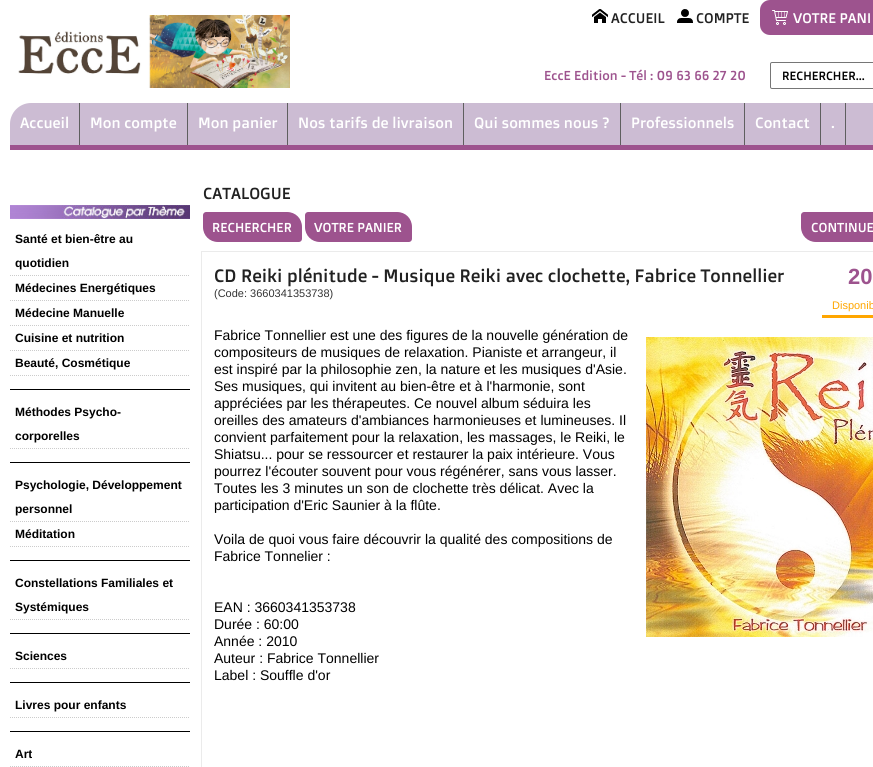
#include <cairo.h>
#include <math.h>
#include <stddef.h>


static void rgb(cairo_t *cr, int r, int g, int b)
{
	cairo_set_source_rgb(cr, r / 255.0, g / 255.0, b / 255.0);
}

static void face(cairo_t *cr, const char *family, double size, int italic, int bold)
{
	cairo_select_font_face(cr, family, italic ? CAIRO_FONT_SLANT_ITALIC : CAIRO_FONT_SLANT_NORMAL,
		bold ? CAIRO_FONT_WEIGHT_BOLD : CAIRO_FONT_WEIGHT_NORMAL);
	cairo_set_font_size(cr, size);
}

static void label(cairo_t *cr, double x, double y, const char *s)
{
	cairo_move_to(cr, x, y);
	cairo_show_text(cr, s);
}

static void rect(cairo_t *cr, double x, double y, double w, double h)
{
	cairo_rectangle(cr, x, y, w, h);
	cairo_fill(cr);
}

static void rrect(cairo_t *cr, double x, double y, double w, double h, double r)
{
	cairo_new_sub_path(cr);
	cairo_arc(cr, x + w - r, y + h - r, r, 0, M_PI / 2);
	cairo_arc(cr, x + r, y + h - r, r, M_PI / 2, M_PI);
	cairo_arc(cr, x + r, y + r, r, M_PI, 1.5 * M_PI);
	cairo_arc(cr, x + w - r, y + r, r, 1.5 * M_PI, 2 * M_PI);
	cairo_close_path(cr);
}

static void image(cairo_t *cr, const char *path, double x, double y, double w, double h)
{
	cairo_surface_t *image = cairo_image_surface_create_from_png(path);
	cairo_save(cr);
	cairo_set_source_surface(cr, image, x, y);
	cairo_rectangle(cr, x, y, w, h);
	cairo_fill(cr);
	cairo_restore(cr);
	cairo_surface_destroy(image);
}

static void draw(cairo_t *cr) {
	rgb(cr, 255, 255, 255);
	cairo_paint(cr);
	image(cr, "image0.png", 18, 15, 272, 73);
	image(cr, "image1.png", 592, 9, 16, 14);
	face(cr, "Doppio One", 14, 0, 0);
	rgb(cr, 33, 33, 33);
	label(cr, 611, 23, "ACCUEIL");
	image(cr, "image2.png", 677, 9, 16, 14);
	label(cr, 696, 23, "COMPTE");
	rgb(cr, 157, 83, 142);
	rrect(cr, 760, 0, 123, 35, 10);
	cairo_fill(cr);
	image(cr, "image3.png", 772, 10, 16, 15);
	rgb(cr, 255, 255, 255);
	label(cr, 793, 23, "VOTRE PANI");
	face(cr, "Doppio One", 13, 0, 0);
	rgb(cr, 157, 83, 142);
	label(cr, 544, 80, "EccE Edition - Tél : 09 63 66 27 20");
	rrect(cr, 770.5, 62.5, 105, 26, 1.5);
	rgb(cr, 118, 118, 118);
	cairo_set_line_width(cr, 1);
	cairo_stroke(cr);
	face(cr, "Doppio One", 12, 0, 0);
	rgb(cr, 0, 0, 0);
	label(cr, 782, 80, "RECHERCHER...");
	rgb(cr, 204, 188, 211);
	cairo_new_path(cr);
	cairo_move_to(cr, 31, 103);
	cairo_line_to(cr, 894, 103);
	cairo_line_to(cr, 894, 129);
	cairo_curve_to(cr, 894, 140.5, 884.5, 150, 873, 150);
	cairo_line_to(cr, 10, 150);
	cairo_line_to(cr, 10, 124);
	cairo_curve_to(cr, 10, 112.5, 19.5, 103, 31, 103);
	cairo_close_path(cr);
	cairo_fill(cr);
	rgb(cr, 157, 83, 142);
	rect(cr, 10, 145, 863, 5);
	rgb(cr, 95, 95, 95);
	rect(cr, 79, 103, 1, 42);
	face(cr, "Doppio One", 15, 0, 0);
	rgb(cr, 255, 255, 255);
	label(cr, 20, 128, "Accueil");
	rgb(cr, 95, 95, 95);
	rect(cr, 187, 103, 1, 42);
	rgb(cr, 255, 255, 255);
	label(cr, 90, 128, "Mon compte");
	rgb(cr, 95, 95, 95);
	rect(cr, 287, 103, 1, 42);
	rgb(cr, 255, 255, 255);
	label(cr, 198, 128, "Mon panier");
	rgb(cr, 95, 95, 95);
	rect(cr, 463, 103, 1, 42);
	rgb(cr, 255, 255, 255);
	label(cr, 298, 128, "Nos tarifs de livraison");
	rgb(cr, 95, 95, 95);
	rect(cr, 620, 103, 1, 42);
	rgb(cr, 255, 255, 255);
	label(cr, 474, 128, "Qui sommes nous ?");
	rgb(cr, 95, 95, 95);
	rect(cr, 744, 103, 1, 42);
	rgb(cr, 255, 255, 255);
	label(cr, 631, 128, "Professionnels");
	rgb(cr, 95, 95, 95);
	rect(cr, 820, 103, 1, 42);
	rgb(cr, 255, 255, 255);
	label(cr, 755, 128, "Contact");
	rgb(cr, 95, 95, 95);
	rect(cr, 845, 103, 1, 42);
	rgb(cr, 255, 255, 255);
	label(cr, 831, 128, ".");
	image(cr, "image4.png", 10, 205, 180, 14);
	cairo_new_path(cr);
	cairo_move_to(cr, 10, 275.5);
	cairo_line_to(cr, 190, 275.5);
	rgb(cr, 204, 204, 204);
	cairo_set_dash(cr, (double[]){1, 1}, 2, 0);
	cairo_stroke(cr);
	face(cr, "Liberation Sans", 12, 0, 1);
	rgb(cr, 0, 0, 0);
	label(cr, 15, 243, "Santé et bien-être au");
	label(cr, 15, 267, "quotidien");
	cairo_new_path(cr);
	cairo_move_to(cr, 10, 300.5);
	cairo_line_to(cr, 190, 300.5);
	rgb(cr, 204, 204, 204);
	cairo_stroke(cr);
	rgb(cr, 0, 0, 0);
	label(cr, 15, 292, "Médecines Energétiques");
	cairo_new_path(cr);
	cairo_move_to(cr, 10, 325.5);
	cairo_line_to(cr, 190, 325.5);
	rgb(cr, 204, 204, 204);
	cairo_stroke(cr);
	rgb(cr, 0, 0, 0);
	label(cr, 15, 317, "Médecine Manuelle");
	cairo_new_path(cr);
	cairo_move_to(cr, 10, 350.5);
	cairo_line_to(cr, 190, 350.5);
	rgb(cr, 204, 204, 204);
	cairo_stroke(cr);
	rgb(cr, 0, 0, 0);
	label(cr, 15, 342, "Cuisine et nutrition");
	cairo_new_path(cr);
	cairo_move_to(cr, 10, 375.5);
	cairo_line_to(cr, 190, 375.5);
	rgb(cr, 204, 204, 204);
	cairo_stroke(cr);
	rgb(cr, 0, 0, 0);
	label(cr, 15, 367, "Beauté, Cosmétique");
	rect(cr, 10, 389, 180, 1);
	cairo_new_path(cr);
	cairo_move_to(cr, 10, 448.5);
	cairo_line_to(cr, 190, 448.5);
	rgb(cr, 204, 204, 204);
	cairo_stroke(cr);
	rgb(cr, 0, 0, 0);
	label(cr, 15, 416, "Méthodes Psycho-");
	label(cr, 15, 440, "corporelles");
	rect(cr, 10, 462, 180, 1);
	cairo_new_path(cr);
	cairo_move_to(cr, 10, 521.5);
	cairo_line_to(cr, 190, 521.5);
	rgb(cr, 204, 204, 204);
	cairo_stroke(cr);
	rgb(cr, 0, 0, 0);
	label(cr, 15, 489, "Psychologie, Développement");
	label(cr, 15, 513, "personnel");
	cairo_new_path(cr);
	cairo_move_to(cr, 10, 546.5);
	cairo_line_to(cr, 190, 546.5);
	rgb(cr, 204, 204, 204);
	cairo_stroke(cr);
	rgb(cr, 0, 0, 0);
	label(cr, 15, 538, "Méditation");
	rect(cr, 10, 560, 180, 1);
	cairo_new_path(cr);
	cairo_move_to(cr, 10, 619.5);
	cairo_line_to(cr, 190, 619.5);
	rgb(cr, 204, 204, 204);
	cairo_stroke(cr);
	rgb(cr, 0, 0, 0);
	label(cr, 15, 587, "Constellations Familiales et");
	label(cr, 15, 611, "Systémiques");
	rect(cr, 10, 633, 180, 1);
	cairo_new_path(cr);
	cairo_move_to(cr, 10, 668.5);
	cairo_line_to(cr, 190, 668.5);
	rgb(cr, 204, 204, 204);
	cairo_stroke(cr);
	rgb(cr, 0, 0, 0);
	label(cr, 15, 660, "Sciences");
	rect(cr, 10, 682, 180, 1);
	cairo_new_path(cr);
	cairo_move_to(cr, 10, 717.5);
	cairo_line_to(cr, 190, 717.5);
	rgb(cr, 204, 204, 204);
	cairo_stroke(cr);
	rgb(cr, 0, 0, 0);
	label(cr, 15, 709, "Livres pour enfants");
	rect(cr, 10, 731, 180, 1);
	cairo_new_path(cr);
	cairo_move_to(cr, 10, 766.5);
	cairo_line_to(cr, 190, 766.5);
	rgb(cr, 204, 204, 204);
	cairo_stroke(cr);
	rgb(cr, 0, 0, 0);
	label(cr, 15, 758, "Art");
	face(cr, "Doppio One", 16, 0, 0);
	rgb(cr, 33, 33, 33);
	label(cr, 203, 199, "CATALOGUE");
	rgb(cr, 157, 83, 142);
	cairo_new_path(cr);
	cairo_move_to(cr, 206, 212);
	cairo_line_to(cr, 287, 212);
	cairo_curve_to(cr, 295.5, 212, 302, 218.5, 302, 227);
	cairo_line_to(cr, 302, 239);
	cairo_curve_to(cr, 302, 240.5, 300.5, 242, 299, 242);
	cairo_line_to(cr, 218, 242);
	cairo_curve_to(cr, 209.5, 242, 203, 235.5, 203, 227);
	cairo_line_to(cr, 203, 215);
	cairo_curve_to(cr, 203, 213.5, 204.5, 212, 206, 212);
	cairo_close_path(cr);
	cairo_fill(cr);
	face(cr, "Doppio One", 13, 0, 0);
	rgb(cr, 255, 255, 255);
	label(cr, 212, 232, "RECHERCHER");
	rgb(cr, 157, 83, 142);
	cairo_new_path(cr);
	cairo_move_to(cr, 308, 212);
	cairo_line_to(cr, 397, 212);
	cairo_curve_to(cr, 405.5, 212, 412, 218.5, 412, 227);
	cairo_line_to(cr, 412, 239);
	cairo_curve_to(cr, 412, 240.5, 410.5, 242, 409, 242);
	cairo_line_to(cr, 320, 242);
	cairo_curve_to(cr, 311.5, 242, 305, 235.5, 305, 227);
	cairo_line_to(cr, 305, 215);
	cairo_curve_to(cr, 305, 213.5, 306.5, 212, 308, 212);
	cairo_close_path(cr);
	cairo_fill(cr);
	rgb(cr, 255, 255, 255);
	label(cr, 314, 232, "VOTRE PANIER");
	rgb(cr, 157, 83, 142);
	cairo_new_path(cr);
	cairo_move_to(cr, 804, 212);
	cairo_line_to(cr, 873, 212);
	cairo_curve_to(cr, 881.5, 212, 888, 218.5, 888, 227);
	cairo_line_to(cr, 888, 239);
	cairo_curve_to(cr, 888, 240.5, 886.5, 242, 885, 242);
	cairo_line_to(cr, 816, 242);
	cairo_curve_to(cr, 807.5, 242, 801, 235.5, 801, 227);
	cairo_line_to(cr, 801, 215);
	cairo_curve_to(cr, 801, 213.5, 802.5, 212, 804, 212);
	cairo_close_path(cr);
	cairo_fill(cr);
	rgb(cr, 255, 255, 255);
	label(cr, 811, 232, "CONTINUE");
	cairo_rectangle(cr, 201.5, 251.5, 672, 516);
	rgb(cr, 235, 235, 235);
	cairo_set_dash(cr, NULL, 0, 0);
	cairo_stroke(cr);
	face(cr, "Doppio One", 18, 0, 0);
	rgb(cr, 33, 33, 33);
	label(cr, 214, 282, "CD Reiki plénitude - Musique Reiki avec clochette, Fabrice Tonnellier");
	face(cr, "Liberation Sans", 11, 0, 0);
	rgb(cr, 51, 51, 51);
	label(cr, 214, 297, "(Code: 3660341353738)");
	face(cr, "Liberation Sans", 22, 0, 1);
	rgb(cr, 157, 83, 142);
	label(cr, 848, 284, "20");
	rgb(cr, 255, 166, 0);
	rect(cr, 822, 315, 51, 3);
	face(cr, "Liberation Sans", 11, 0, 0);
	label(cr, 832, 309, "Disponib");
	face(cr, "Liberation Sans", 14, 0, 0);
	rgb(cr, 0, 0, 0);
	label(cr, 214, 340, "Fabrice Tonnellier est une des figures de la nouvelle génération de");
	image(cr, "image5.png", 646, 337, 227, 300);
	label(cr, 214, 357, "compositeurs de musiques de relaxation. Pianiste et arrangeur, il");
	label(cr, 214, 374, "est inspiré par la philosophie zen, la nature et les musiques d'Asie.");
	label(cr, 214, 391, "Ses musiques, qui invitent au bien-être et à l'harmonie, sont");
	label(cr, 214, 408, "appréciées par les thérapeutes. Ce nouvel album séduira les");
	label(cr, 214, 425, "oreilles des amateurs d'ambiances harmonieuses et lumineuses. Il");
	label(cr, 214, 442, "convient parfaitement pour la relaxation, les massages, le Reiki, le");
	label(cr, 214, 459, "Shiatsu... pour se ressourcer et restaurer la paix intérieure. Vous");
	label(cr, 214, 476, "pourrez l'écouter souvent pour vous régénérer, sans vous lasser.");
	label(cr, 214, 493, "Toutes les 3 minutes un son de clochette très délicat. Avec la");
	label(cr, 214, 510, "participation d'Eric Saunier à la flûte.");
	label(cr, 214, 544, "Voila de quoi vous faire découvrir la qualité des compositions de");
	label(cr, 214, 561, "Fabrice Tonnelier :");
	label(cr, 214, 612, "EAN : 3660341353738");
	label(cr, 214, 629, "Durée : 60:00");
	label(cr, 214, 646, "Année : 2010");
	label(cr, 214, 663, "Auteur : Fabrice Tonnellier");
	label(cr, 214, 680, "Label : Souffle d'or");
}

int main(void) {
	cairo_surface_t *surface = cairo_image_surface_create(CAIRO_FORMAT_RGB24, 873, 767);
	cairo_t *cr = cairo_create(surface);
	cairo_font_options_t *options = cairo_font_options_create();
	cairo_font_options_set_hint_metrics(options, CAIRO_HINT_METRICS_OFF);
	cairo_font_options_set_hint_style(options, CAIRO_HINT_STYLE_NONE);
	cairo_set_font_options(cr, options);
	cairo_set_miter_limit(cr, 4);
	draw(cr);
	cairo_surface_write_to_png(surface, "render.png");
	cairo_font_options_destroy(options);
	cairo_destroy(cr);
	cairo_surface_destroy(surface);
	return 0;
}
